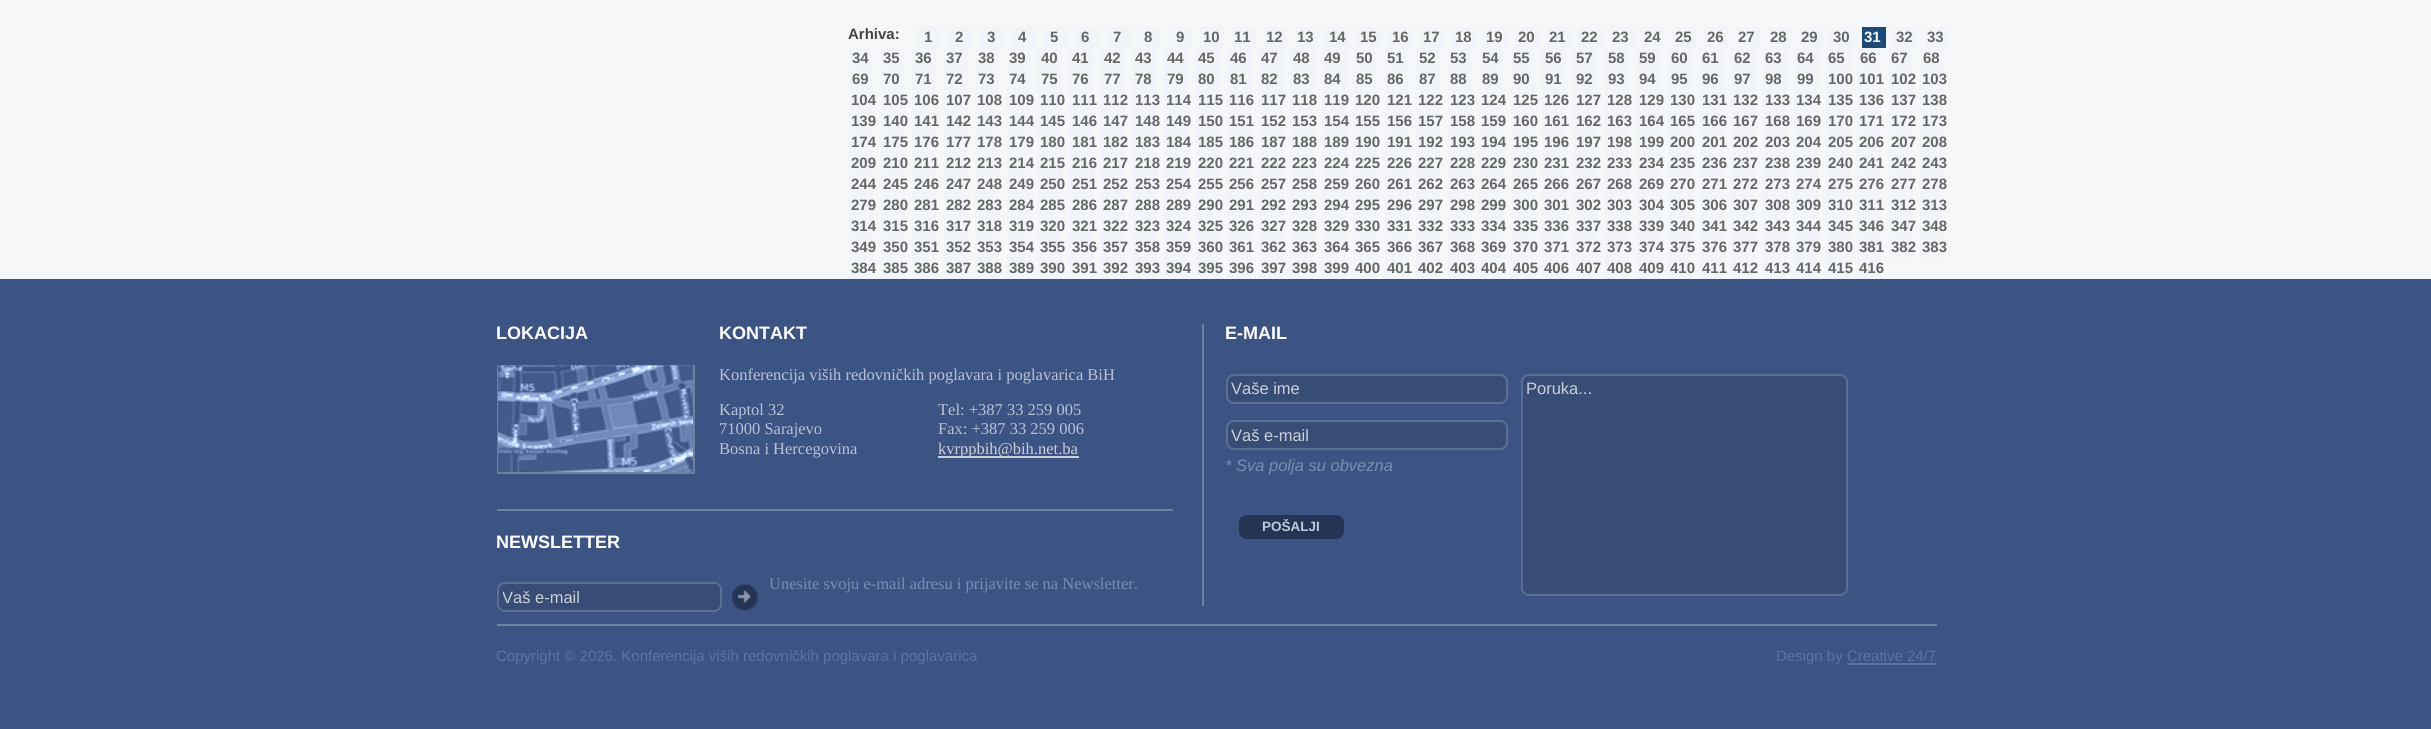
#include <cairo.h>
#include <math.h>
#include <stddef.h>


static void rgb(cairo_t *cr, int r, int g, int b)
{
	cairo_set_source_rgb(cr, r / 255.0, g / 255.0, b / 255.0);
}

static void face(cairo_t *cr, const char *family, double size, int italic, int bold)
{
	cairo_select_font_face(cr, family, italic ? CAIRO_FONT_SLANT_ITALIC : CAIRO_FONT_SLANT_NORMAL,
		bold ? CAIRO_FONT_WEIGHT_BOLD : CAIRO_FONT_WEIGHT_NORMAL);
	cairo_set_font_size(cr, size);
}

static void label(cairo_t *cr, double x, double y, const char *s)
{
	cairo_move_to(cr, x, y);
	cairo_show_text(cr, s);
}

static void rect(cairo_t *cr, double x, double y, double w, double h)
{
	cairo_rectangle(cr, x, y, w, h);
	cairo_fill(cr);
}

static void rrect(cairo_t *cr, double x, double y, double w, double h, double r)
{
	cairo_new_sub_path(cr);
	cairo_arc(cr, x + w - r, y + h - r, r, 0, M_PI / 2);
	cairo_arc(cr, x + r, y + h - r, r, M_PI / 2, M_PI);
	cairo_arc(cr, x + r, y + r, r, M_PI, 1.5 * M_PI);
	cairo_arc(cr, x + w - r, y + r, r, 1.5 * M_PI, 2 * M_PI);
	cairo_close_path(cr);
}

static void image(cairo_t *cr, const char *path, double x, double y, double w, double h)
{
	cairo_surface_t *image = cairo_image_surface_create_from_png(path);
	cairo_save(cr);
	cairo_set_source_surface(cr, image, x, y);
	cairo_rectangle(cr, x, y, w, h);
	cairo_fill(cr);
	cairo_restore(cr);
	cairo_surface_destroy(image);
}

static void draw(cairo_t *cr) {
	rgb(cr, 246, 247, 249);
	cairo_paint(cr);
	face(cr, "Liberation Sans", 15, 0, 1);
	rgb(cr, 68, 68, 68);
	label(cr, 848, 39, "Arhiva:");
	rgb(cr, 241, 244, 248);
	rect(cr, 917, 27, 24, 21);
	rgb(cr, 102, 102, 102);
	label(cr, 924, 42, "1");
	rgb(cr, 241, 244, 248);
	rect(cr, 948, 27, 24, 21);
	rgb(cr, 102, 102, 102);
	label(cr, 955, 42, "2");
	rgb(cr, 241, 244, 248);
	rect(cr, 980, 27, 24, 21);
	rgb(cr, 102, 102, 102);
	label(cr, 987, 42, "3");
	rgb(cr, 241, 244, 248);
	rect(cr, 1011, 27, 24, 21);
	rgb(cr, 102, 102, 102);
	label(cr, 1018, 42, "4");
	rgb(cr, 241, 244, 248);
	rect(cr, 1043, 27, 24, 21);
	rgb(cr, 102, 102, 102);
	label(cr, 1050, 42, "5");
	rgb(cr, 241, 244, 248);
	rect(cr, 1074, 27, 24, 21);
	rgb(cr, 102, 102, 102);
	label(cr, 1081, 42, "6");
	rgb(cr, 241, 244, 248);
	rect(cr, 1106, 27, 24, 21);
	rgb(cr, 102, 102, 102);
	label(cr, 1113, 42, "7");
	rgb(cr, 241, 244, 248);
	rect(cr, 1137, 27, 24, 21);
	rgb(cr, 102, 102, 102);
	label(cr, 1144, 42, "8");
	rgb(cr, 241, 244, 248);
	rect(cr, 1169, 27, 24, 21);
	rgb(cr, 102, 102, 102);
	label(cr, 1176, 42, "9");
	rgb(cr, 241, 244, 248);
	rect(cr, 1200, 27, 24, 21);
	rgb(cr, 102, 102, 102);
	label(cr, 1203, 42, "10");
	rgb(cr, 241, 244, 248);
	rect(cr, 1232, 27, 24, 21);
	rgb(cr, 102, 102, 102);
	label(cr, 1234, 42, "11");
	rgb(cr, 241, 244, 248);
	rect(cr, 1263, 27, 24, 21);
	rgb(cr, 102, 102, 102);
	label(cr, 1266, 42, "12");
	rgb(cr, 241, 244, 248);
	rect(cr, 1295, 27, 24, 21);
	rgb(cr, 102, 102, 102);
	label(cr, 1297, 42, "13");
	rgb(cr, 241, 244, 248);
	rect(cr, 1326, 27, 24, 21);
	rgb(cr, 102, 102, 102);
	label(cr, 1329, 42, "14");
	rgb(cr, 241, 244, 248);
	rect(cr, 1358, 27, 24, 21);
	rgb(cr, 102, 102, 102);
	label(cr, 1360, 42, "15");
	rgb(cr, 241, 244, 248);
	rect(cr, 1389, 27, 24, 21);
	rgb(cr, 102, 102, 102);
	label(cr, 1392, 42, "16");
	rgb(cr, 241, 244, 248);
	rect(cr, 1421, 27, 24, 21);
	rgb(cr, 102, 102, 102);
	label(cr, 1423, 42, "17");
	rgb(cr, 241, 244, 248);
	rect(cr, 1452, 27, 24, 21);
	rgb(cr, 102, 102, 102);
	label(cr, 1455, 42, "18");
	rgb(cr, 241, 244, 248);
	rect(cr, 1484, 27, 24, 21);
	rgb(cr, 102, 102, 102);
	label(cr, 1486, 42, "19");
	rgb(cr, 241, 244, 248);
	rect(cr, 1515, 27, 24, 21);
	rgb(cr, 102, 102, 102);
	label(cr, 1518, 42, "20");
	rgb(cr, 241, 244, 248);
	rect(cr, 1547, 27, 24, 21);
	rgb(cr, 102, 102, 102);
	label(cr, 1549, 42, "21");
	rgb(cr, 241, 244, 248);
	rect(cr, 1578, 27, 24, 21);
	rgb(cr, 102, 102, 102);
	label(cr, 1581, 42, "22");
	rgb(cr, 241, 244, 248);
	rect(cr, 1610, 27, 24, 21);
	rgb(cr, 102, 102, 102);
	label(cr, 1612, 42, "23");
	rgb(cr, 241, 244, 248);
	rect(cr, 1641, 27, 24, 21);
	rgb(cr, 102, 102, 102);
	label(cr, 1644, 42, "24");
	rgb(cr, 241, 244, 248);
	rect(cr, 1673, 27, 24, 21);
	rgb(cr, 102, 102, 102);
	label(cr, 1675, 42, "25");
	rgb(cr, 241, 244, 248);
	rect(cr, 1704, 27, 24, 21);
	rgb(cr, 102, 102, 102);
	label(cr, 1707, 42, "26");
	rgb(cr, 241, 244, 248);
	rect(cr, 1736, 27, 24, 21);
	rgb(cr, 102, 102, 102);
	label(cr, 1738, 42, "27");
	rgb(cr, 241, 244, 248);
	rect(cr, 1767, 27, 24, 21);
	rgb(cr, 102, 102, 102);
	label(cr, 1770, 42, "28");
	rgb(cr, 241, 244, 248);
	rect(cr, 1799, 27, 24, 21);
	rgb(cr, 102, 102, 102);
	label(cr, 1801, 42, "29");
	rgb(cr, 241, 244, 248);
	rect(cr, 1830, 27, 24, 21);
	rgb(cr, 102, 102, 102);
	label(cr, 1833, 42, "30");
	rgb(cr, 28, 75, 122);
	rect(cr, 1862, 27, 24, 21);
	rgb(cr, 255, 255, 255);
	label(cr, 1864, 42, "31");
	rgb(cr, 241, 244, 248);
	rect(cr, 1893, 27, 24, 21);
	rgb(cr, 102, 102, 102);
	label(cr, 1896, 42, "32");
	rgb(cr, 241, 244, 248);
	rect(cr, 1925, 27, 24, 21);
	rgb(cr, 102, 102, 102);
	label(cr, 1927, 42, "33");
	rgb(cr, 241, 244, 248);
	rect(cr, 849, 48, 24, 105);
	rgb(cr, 102, 102, 102);
	label(cr, 852, 63, "34");
	rgb(cr, 241, 244, 248);
	rect(cr, 881, 48, 24, 105);
	rgb(cr, 102, 102, 102);
	label(cr, 883, 63, "35");
	rgb(cr, 241, 244, 248);
	rect(cr, 912, 48, 24, 105);
	rgb(cr, 102, 102, 102);
	label(cr, 915, 63, "36");
	rgb(cr, 241, 244, 248);
	rect(cr, 944, 48, 24, 105);
	rgb(cr, 102, 102, 102);
	label(cr, 946, 63, "37");
	rgb(cr, 241, 244, 248);
	rect(cr, 975, 48, 24, 105);
	rgb(cr, 102, 102, 102);
	label(cr, 978, 63, "38");
	rgb(cr, 241, 244, 248);
	rect(cr, 1007, 48, 24, 105);
	rgb(cr, 102, 102, 102);
	label(cr, 1009, 63, "39");
	rgb(cr, 241, 244, 248);
	rect(cr, 1038, 48, 24, 105);
	rgb(cr, 102, 102, 102);
	label(cr, 1041, 63, "40");
	rgb(cr, 241, 244, 248);
	rect(cr, 1070, 48, 24, 105);
	rgb(cr, 102, 102, 102);
	label(cr, 1072, 63, "41");
	rgb(cr, 241, 244, 248);
	rect(cr, 1101, 48, 24, 105);
	rgb(cr, 102, 102, 102);
	label(cr, 1104, 63, "42");
	rgb(cr, 241, 244, 248);
	rect(cr, 1133, 48, 24, 105);
	rgb(cr, 102, 102, 102);
	label(cr, 1135, 63, "43");
	rgb(cr, 241, 244, 248);
	rect(cr, 1164, 48, 24, 105);
	rgb(cr, 102, 102, 102);
	label(cr, 1167, 63, "44");
	rgb(cr, 241, 244, 248);
	rect(cr, 1196, 48, 24, 105);
	rgb(cr, 102, 102, 102);
	label(cr, 1198, 63, "45");
	rgb(cr, 241, 244, 248);
	rect(cr, 1227, 48, 24, 105);
	rgb(cr, 102, 102, 102);
	label(cr, 1230, 63, "46");
	rgb(cr, 241, 244, 248);
	rect(cr, 1259, 48, 24, 105);
	rgb(cr, 102, 102, 102);
	label(cr, 1261, 63, "47");
	rgb(cr, 241, 244, 248);
	rect(cr, 1290, 48, 24, 105);
	rgb(cr, 102, 102, 102);
	label(cr, 1293, 63, "48");
	rgb(cr, 241, 244, 248);
	rect(cr, 1322, 48, 24, 105);
	rgb(cr, 102, 102, 102);
	label(cr, 1324, 63, "49");
	rgb(cr, 241, 244, 248);
	rect(cr, 1353, 48, 24, 105);
	rgb(cr, 102, 102, 102);
	label(cr, 1356, 63, "50");
	rgb(cr, 241, 244, 248);
	rect(cr, 1385, 48, 24, 105);
	rgb(cr, 102, 102, 102);
	label(cr, 1387, 63, "51");
	rgb(cr, 241, 244, 248);
	rect(cr, 1416, 48, 24, 105);
	rgb(cr, 102, 102, 102);
	label(cr, 1419, 63, "52");
	rgb(cr, 241, 244, 248);
	rect(cr, 1448, 48, 24, 105);
	rgb(cr, 102, 102, 102);
	label(cr, 1450, 63, "53");
	rgb(cr, 241, 244, 248);
	rect(cr, 1479, 48, 24, 105);
	rgb(cr, 102, 102, 102);
	label(cr, 1482, 63, "54");
	rgb(cr, 241, 244, 248);
	rect(cr, 1511, 48, 24, 105);
	rgb(cr, 102, 102, 102);
	label(cr, 1513, 63, "55");
	rgb(cr, 241, 244, 248);
	rect(cr, 1542, 48, 24, 105);
	rgb(cr, 102, 102, 102);
	label(cr, 1545, 63, "56");
	rgb(cr, 241, 244, 248);
	rect(cr, 1574, 48, 24, 105);
	rgb(cr, 102, 102, 102);
	label(cr, 1576, 63, "57");
	rgb(cr, 241, 244, 248);
	rect(cr, 1605, 48, 24, 105);
	rgb(cr, 102, 102, 102);
	label(cr, 1608, 63, "58");
	rgb(cr, 241, 244, 248);
	rect(cr, 1637, 48, 24, 105);
	rgb(cr, 102, 102, 102);
	label(cr, 1639, 63, "59");
	rgb(cr, 241, 244, 248);
	rect(cr, 1668, 48, 24, 105);
	rgb(cr, 102, 102, 102);
	label(cr, 1671, 63, "60");
	rgb(cr, 241, 244, 248);
	rect(cr, 1700, 48, 24, 105);
	rgb(cr, 102, 102, 102);
	label(cr, 1702, 63, "61");
	rgb(cr, 241, 244, 248);
	rect(cr, 1731, 48, 24, 105);
	rgb(cr, 102, 102, 102);
	label(cr, 1734, 63, "62");
	rgb(cr, 241, 244, 248);
	rect(cr, 1763, 48, 24, 105);
	rgb(cr, 102, 102, 102);
	label(cr, 1765, 63, "63");
	rgb(cr, 241, 244, 248);
	rect(cr, 1794, 48, 24, 105);
	rgb(cr, 102, 102, 102);
	label(cr, 1797, 63, "64");
	rgb(cr, 241, 244, 248);
	rect(cr, 1826, 48, 24, 105);
	rgb(cr, 102, 102, 102);
	label(cr, 1828, 63, "65");
	rgb(cr, 241, 244, 248);
	rect(cr, 1857, 48, 24, 105);
	rgb(cr, 102, 102, 102);
	label(cr, 1860, 63, "66");
	rgb(cr, 241, 244, 248);
	rect(cr, 1889, 48, 24, 105);
	rgb(cr, 102, 102, 102);
	label(cr, 1891, 63, "67");
	rgb(cr, 241, 244, 248);
	rect(cr, 1920, 48, 24, 105);
	rgb(cr, 102, 102, 102);
	label(cr, 1923, 63, "68");
	label(cr, 852, 84, "69");
	label(cr, 883, 84, "70");
	label(cr, 915, 84, "71");
	label(cr, 946, 84, "72");
	label(cr, 978, 84, "73");
	label(cr, 1009, 84, "74");
	label(cr, 1041, 84, "75");
	label(cr, 1072, 84, "76");
	label(cr, 1104, 84, "77");
	label(cr, 1135, 84, "78");
	label(cr, 1167, 84, "79");
	label(cr, 1198, 84, "80");
	label(cr, 1230, 84, "81");
	label(cr, 1261, 84, "82");
	label(cr, 1293, 84, "83");
	label(cr, 1324, 84, "84");
	label(cr, 1356, 84, "85");
	label(cr, 1387, 84, "86");
	label(cr, 1419, 84, "87");
	label(cr, 1450, 84, "88");
	label(cr, 1482, 84, "89");
	label(cr, 1513, 84, "90");
	label(cr, 1545, 84, "91");
	label(cr, 1576, 84, "92");
	label(cr, 1608, 84, "93");
	label(cr, 1639, 84, "94");
	label(cr, 1671, 84, "95");
	label(cr, 1702, 84, "96");
	label(cr, 1734, 84, "97");
	label(cr, 1765, 84, "98");
	label(cr, 1797, 84, "99");
	label(cr, 1828, 84, "100");
	label(cr, 1859, 84, "101");
	label(cr, 1891, 84, "102");
	label(cr, 1922, 84, "103");
	label(cr, 851, 105, "104");
	label(cr, 883, 105, "105");
	label(cr, 914, 105, "106");
	label(cr, 946, 105, "107");
	label(cr, 977, 105, "108");
	label(cr, 1009, 105, "109");
	label(cr, 1040, 105, "110");
	label(cr, 1072, 105, "111");
	label(cr, 1103, 105, "112");
	label(cr, 1135, 105, "113");
	label(cr, 1166, 105, "114");
	label(cr, 1198, 105, "115");
	label(cr, 1229, 105, "116");
	label(cr, 1261, 105, "117");
	label(cr, 1292, 105, "118");
	label(cr, 1324, 105, "119");
	label(cr, 1355, 105, "120");
	label(cr, 1387, 105, "121");
	label(cr, 1418, 105, "122");
	label(cr, 1450, 105, "123");
	label(cr, 1481, 105, "124");
	label(cr, 1513, 105, "125");
	label(cr, 1544, 105, "126");
	label(cr, 1576, 105, "127");
	label(cr, 1607, 105, "128");
	label(cr, 1639, 105, "129");
	label(cr, 1670, 105, "130");
	label(cr, 1702, 105, "131");
	label(cr, 1733, 105, "132");
	label(cr, 1765, 105, "133");
	label(cr, 1796, 105, "134");
	label(cr, 1828, 105, "135");
	label(cr, 1859, 105, "136");
	label(cr, 1891, 105, "137");
	label(cr, 1922, 105, "138");
	label(cr, 851, 126, "139");
	label(cr, 883, 126, "140");
	label(cr, 914, 126, "141");
	label(cr, 946, 126, "142");
	label(cr, 977, 126, "143");
	label(cr, 1009, 126, "144");
	label(cr, 1040, 126, "145");
	label(cr, 1072, 126, "146");
	label(cr, 1103, 126, "147");
	label(cr, 1135, 126, "148");
	label(cr, 1166, 126, "149");
	label(cr, 1198, 126, "150");
	label(cr, 1229, 126, "151");
	label(cr, 1261, 126, "152");
	label(cr, 1292, 126, "153");
	label(cr, 1324, 126, "154");
	label(cr, 1355, 126, "155");
	label(cr, 1387, 126, "156");
	label(cr, 1418, 126, "157");
	label(cr, 1450, 126, "158");
	label(cr, 1481, 126, "159");
	label(cr, 1513, 126, "160");
	label(cr, 1544, 126, "161");
	label(cr, 1576, 126, "162");
	label(cr, 1607, 126, "163");
	label(cr, 1639, 126, "164");
	label(cr, 1670, 126, "165");
	label(cr, 1702, 126, "166");
	label(cr, 1733, 126, "167");
	label(cr, 1765, 126, "168");
	label(cr, 1796, 126, "169");
	label(cr, 1828, 126, "170");
	label(cr, 1859, 126, "171");
	label(cr, 1891, 126, "172");
	label(cr, 1922, 126, "173");
	label(cr, 851, 147, "174");
	label(cr, 883, 147, "175");
	label(cr, 914, 147, "176");
	label(cr, 946, 147, "177");
	label(cr, 977, 147, "178");
	label(cr, 1009, 147, "179");
	label(cr, 1040, 147, "180");
	label(cr, 1072, 147, "181");
	label(cr, 1103, 147, "182");
	label(cr, 1135, 147, "183");
	label(cr, 1166, 147, "184");
	label(cr, 1198, 147, "185");
	label(cr, 1229, 147, "186");
	label(cr, 1261, 147, "187");
	label(cr, 1292, 147, "188");
	label(cr, 1324, 147, "189");
	label(cr, 1355, 147, "190");
	label(cr, 1387, 147, "191");
	label(cr, 1418, 147, "192");
	label(cr, 1450, 147, "193");
	label(cr, 1481, 147, "194");
	label(cr, 1513, 147, "195");
	label(cr, 1544, 147, "196");
	label(cr, 1576, 147, "197");
	label(cr, 1607, 147, "198");
	label(cr, 1639, 147, "199");
	label(cr, 1670, 147, "200");
	label(cr, 1702, 147, "201");
	label(cr, 1733, 147, "202");
	label(cr, 1765, 147, "203");
	label(cr, 1796, 147, "204");
	label(cr, 1828, 147, "205");
	label(cr, 1859, 147, "206");
	label(cr, 1891, 147, "207");
	label(cr, 1922, 147, "208");
	rgb(cr, 241, 244, 248);
	rect(cr, 849, 153, 24, 105);
	rgb(cr, 102, 102, 102);
	label(cr, 851, 168, "209");
	rgb(cr, 241, 244, 248);
	rect(cr, 881, 153, 24, 105);
	rgb(cr, 102, 102, 102);
	label(cr, 883, 168, "210");
	rgb(cr, 241, 244, 248);
	rect(cr, 912, 153, 24, 105);
	rgb(cr, 102, 102, 102);
	label(cr, 914, 168, "211");
	rgb(cr, 241, 244, 248);
	rect(cr, 944, 153, 24, 105);
	rgb(cr, 102, 102, 102);
	label(cr, 946, 168, "212");
	rgb(cr, 241, 244, 248);
	rect(cr, 975, 153, 24, 105);
	rgb(cr, 102, 102, 102);
	label(cr, 977, 168, "213");
	rgb(cr, 241, 244, 248);
	rect(cr, 1007, 153, 24, 105);
	rgb(cr, 102, 102, 102);
	label(cr, 1009, 168, "214");
	rgb(cr, 241, 244, 248);
	rect(cr, 1038, 153, 24, 105);
	rgb(cr, 102, 102, 102);
	label(cr, 1040, 168, "215");
	rgb(cr, 241, 244, 248);
	rect(cr, 1070, 153, 24, 105);
	rgb(cr, 102, 102, 102);
	label(cr, 1072, 168, "216");
	rgb(cr, 241, 244, 248);
	rect(cr, 1101, 153, 24, 105);
	rgb(cr, 102, 102, 102);
	label(cr, 1103, 168, "217");
	rgb(cr, 241, 244, 248);
	rect(cr, 1133, 153, 24, 105);
	rgb(cr, 102, 102, 102);
	label(cr, 1135, 168, "218");
	rgb(cr, 241, 244, 248);
	rect(cr, 1164, 153, 24, 105);
	rgb(cr, 102, 102, 102);
	label(cr, 1166, 168, "219");
	rgb(cr, 241, 244, 248);
	rect(cr, 1196, 153, 24, 105);
	rgb(cr, 102, 102, 102);
	label(cr, 1198, 168, "220");
	rgb(cr, 241, 244, 248);
	rect(cr, 1227, 153, 24, 105);
	rgb(cr, 102, 102, 102);
	label(cr, 1229, 168, "221");
	rgb(cr, 241, 244, 248);
	rect(cr, 1259, 153, 24, 105);
	rgb(cr, 102, 102, 102);
	label(cr, 1261, 168, "222");
	rgb(cr, 241, 244, 248);
	rect(cr, 1290, 153, 24, 105);
	rgb(cr, 102, 102, 102);
	label(cr, 1292, 168, "223");
	rgb(cr, 241, 244, 248);
	rect(cr, 1322, 153, 24, 105);
	rgb(cr, 102, 102, 102);
	label(cr, 1324, 168, "224");
	rgb(cr, 241, 244, 248);
	rect(cr, 1353, 153, 24, 105);
	rgb(cr, 102, 102, 102);
	label(cr, 1355, 168, "225");
	rgb(cr, 241, 244, 248);
	rect(cr, 1385, 153, 24, 105);
	rgb(cr, 102, 102, 102);
	label(cr, 1387, 168, "226");
	rgb(cr, 241, 244, 248);
	rect(cr, 1416, 153, 24, 105);
	rgb(cr, 102, 102, 102);
	label(cr, 1418, 168, "227");
	rgb(cr, 241, 244, 248);
	rect(cr, 1448, 153, 24, 105);
	rgb(cr, 102, 102, 102);
	label(cr, 1450, 168, "228");
	rgb(cr, 241, 244, 248);
	rect(cr, 1479, 153, 24, 105);
	rgb(cr, 102, 102, 102);
	label(cr, 1481, 168, "229");
	rgb(cr, 241, 244, 248);
	rect(cr, 1511, 153, 24, 105);
	rgb(cr, 102, 102, 102);
	label(cr, 1513, 168, "230");
	rgb(cr, 241, 244, 248);
	rect(cr, 1542, 153, 24, 105);
	rgb(cr, 102, 102, 102);
	label(cr, 1544, 168, "231");
	rgb(cr, 241, 244, 248);
	rect(cr, 1574, 153, 24, 105);
	rgb(cr, 102, 102, 102);
	label(cr, 1576, 168, "232");
	rgb(cr, 241, 244, 248);
	rect(cr, 1605, 153, 24, 105);
	rgb(cr, 102, 102, 102);
	label(cr, 1607, 168, "233");
	rgb(cr, 241, 244, 248);
	rect(cr, 1637, 153, 24, 105);
	rgb(cr, 102, 102, 102);
	label(cr, 1639, 168, "234");
	rgb(cr, 241, 244, 248);
	rect(cr, 1668, 153, 24, 105);
	rgb(cr, 102, 102, 102);
	label(cr, 1670, 168, "235");
	rgb(cr, 241, 244, 248);
	rect(cr, 1700, 153, 24, 105);
	rgb(cr, 102, 102, 102);
	label(cr, 1702, 168, "236");
	rgb(cr, 241, 244, 248);
	rect(cr, 1731, 153, 24, 105);
	rgb(cr, 102, 102, 102);
	label(cr, 1733, 168, "237");
	rgb(cr, 241, 244, 248);
	rect(cr, 1763, 153, 24, 105);
	rgb(cr, 102, 102, 102);
	label(cr, 1765, 168, "238");
	rgb(cr, 241, 244, 248);
	rect(cr, 1794, 153, 24, 105);
	rgb(cr, 102, 102, 102);
	label(cr, 1796, 168, "239");
	rgb(cr, 241, 244, 248);
	rect(cr, 1826, 153, 24, 105);
	rgb(cr, 102, 102, 102);
	label(cr, 1828, 168, "240");
	rgb(cr, 241, 244, 248);
	rect(cr, 1857, 153, 24, 105);
	rgb(cr, 102, 102, 102);
	label(cr, 1859, 168, "241");
	rgb(cr, 241, 244, 248);
	rect(cr, 1889, 153, 24, 105);
	rgb(cr, 102, 102, 102);
	label(cr, 1891, 168, "242");
	rgb(cr, 241, 244, 248);
	rect(cr, 1920, 153, 24, 105);
	rgb(cr, 102, 102, 102);
	label(cr, 1922, 168, "243");
	label(cr, 851, 189, "244");
	label(cr, 883, 189, "245");
	label(cr, 914, 189, "246");
	label(cr, 946, 189, "247");
	label(cr, 977, 189, "248");
	label(cr, 1009, 189, "249");
	label(cr, 1040, 189, "250");
	label(cr, 1072, 189, "251");
	label(cr, 1103, 189, "252");
	label(cr, 1135, 189, "253");
	label(cr, 1166, 189, "254");
	label(cr, 1198, 189, "255");
	label(cr, 1229, 189, "256");
	label(cr, 1261, 189, "257");
	label(cr, 1292, 189, "258");
	label(cr, 1324, 189, "259");
	label(cr, 1355, 189, "260");
	label(cr, 1387, 189, "261");
	label(cr, 1418, 189, "262");
	label(cr, 1450, 189, "263");
	label(cr, 1481, 189, "264");
	label(cr, 1513, 189, "265");
	label(cr, 1544, 189, "266");
	label(cr, 1576, 189, "267");
	label(cr, 1607, 189, "268");
	label(cr, 1639, 189, "269");
	label(cr, 1670, 189, "270");
	label(cr, 1702, 189, "271");
	label(cr, 1733, 189, "272");
	label(cr, 1765, 189, "273");
	label(cr, 1796, 189, "274");
	label(cr, 1828, 189, "275");
	label(cr, 1859, 189, "276");
	label(cr, 1891, 189, "277");
	label(cr, 1922, 189, "278");
	label(cr, 851, 210, "279");
	label(cr, 883, 210, "280");
	label(cr, 914, 210, "281");
	label(cr, 946, 210, "282");
	label(cr, 977, 210, "283");
	label(cr, 1009, 210, "284");
	label(cr, 1040, 210, "285");
	label(cr, 1072, 210, "286");
	label(cr, 1103, 210, "287");
	label(cr, 1135, 210, "288");
	label(cr, 1166, 210, "289");
	label(cr, 1198, 210, "290");
	label(cr, 1229, 210, "291");
	label(cr, 1261, 210, "292");
	label(cr, 1292, 210, "293");
	label(cr, 1324, 210, "294");
	label(cr, 1355, 210, "295");
	label(cr, 1387, 210, "296");
	label(cr, 1418, 210, "297");
	label(cr, 1450, 210, "298");
	label(cr, 1481, 210, "299");
	label(cr, 1513, 210, "300");
	label(cr, 1544, 210, "301");
	label(cr, 1576, 210, "302");
	label(cr, 1607, 210, "303");
	label(cr, 1639, 210, "304");
	label(cr, 1670, 210, "305");
	label(cr, 1702, 210, "306");
	label(cr, 1733, 210, "307");
	label(cr, 1765, 210, "308");
	label(cr, 1796, 210, "309");
	label(cr, 1828, 210, "310");
	label(cr, 1859, 210, "311");
	label(cr, 1891, 210, "312");
	label(cr, 1922, 210, "313");
	label(cr, 851, 231, "314");
	label(cr, 883, 231, "315");
	label(cr, 914, 231, "316");
	label(cr, 946, 231, "317");
	label(cr, 977, 231, "318");
	label(cr, 1009, 231, "319");
	label(cr, 1040, 231, "320");
	label(cr, 1072, 231, "321");
	label(cr, 1103, 231, "322");
	label(cr, 1135, 231, "323");
	label(cr, 1166, 231, "324");
	label(cr, 1198, 231, "325");
	label(cr, 1229, 231, "326");
	label(cr, 1261, 231, "327");
	label(cr, 1292, 231, "328");
	label(cr, 1324, 231, "329");
	label(cr, 1355, 231, "330");
	label(cr, 1387, 231, "331");
	label(cr, 1418, 231, "332");
	label(cr, 1450, 231, "333");
	label(cr, 1481, 231, "334");
	label(cr, 1513, 231, "335");
	label(cr, 1544, 231, "336");
	label(cr, 1576, 231, "337");
	label(cr, 1607, 231, "338");
	label(cr, 1639, 231, "339");
	label(cr, 1670, 231, "340");
	label(cr, 1702, 231, "341");
	label(cr, 1733, 231, "342");
	label(cr, 1765, 231, "343");
	label(cr, 1796, 231, "344");
	label(cr, 1828, 231, "345");
	label(cr, 1859, 231, "346");
	label(cr, 1891, 231, "347");
	label(cr, 1922, 231, "348");
	label(cr, 851, 252, "349");
	label(cr, 883, 252, "350");
	label(cr, 914, 252, "351");
	label(cr, 946, 252, "352");
	label(cr, 977, 252, "353");
	label(cr, 1009, 252, "354");
	label(cr, 1040, 252, "355");
	label(cr, 1072, 252, "356");
	label(cr, 1103, 252, "357");
	label(cr, 1135, 252, "358");
	label(cr, 1166, 252, "359");
	label(cr, 1198, 252, "360");
	label(cr, 1229, 252, "361");
	label(cr, 1261, 252, "362");
	label(cr, 1292, 252, "363");
	label(cr, 1324, 252, "364");
	label(cr, 1355, 252, "365");
	label(cr, 1387, 252, "366");
	label(cr, 1418, 252, "367");
	label(cr, 1450, 252, "368");
	label(cr, 1481, 252, "369");
	label(cr, 1513, 252, "370");
	label(cr, 1544, 252, "371");
	label(cr, 1576, 252, "372");
	label(cr, 1607, 252, "373");
	label(cr, 1639, 252, "374");
	label(cr, 1670, 252, "375");
	label(cr, 1702, 252, "376");
	label(cr, 1733, 252, "377");
	label(cr, 1765, 252, "378");
	label(cr, 1796, 252, "379");
	label(cr, 1828, 252, "380");
	label(cr, 1859, 252, "381");
	label(cr, 1891, 252, "382");
	label(cr, 1922, 252, "383");
	rgb(cr, 241, 244, 248);
	rect(cr, 849, 258, 24, 21);
	rgb(cr, 102, 102, 102);
	label(cr, 851, 273, "384");
	rgb(cr, 241, 244, 248);
	rect(cr, 881, 258, 24, 21);
	rgb(cr, 102, 102, 102);
	label(cr, 883, 273, "385");
	rgb(cr, 241, 244, 248);
	rect(cr, 912, 258, 24, 21);
	rgb(cr, 102, 102, 102);
	label(cr, 914, 273, "386");
	rgb(cr, 241, 244, 248);
	rect(cr, 944, 258, 24, 21);
	rgb(cr, 102, 102, 102);
	label(cr, 946, 273, "387");
	rgb(cr, 241, 244, 248);
	rect(cr, 975, 258, 24, 21);
	rgb(cr, 102, 102, 102);
	label(cr, 977, 273, "388");
	rgb(cr, 241, 244, 248);
	rect(cr, 1007, 258, 24, 21);
	rgb(cr, 102, 102, 102);
	label(cr, 1009, 273, "389");
	rgb(cr, 241, 244, 248);
	rect(cr, 1038, 258, 24, 21);
	rgb(cr, 102, 102, 102);
	label(cr, 1040, 273, "390");
	rgb(cr, 241, 244, 248);
	rect(cr, 1070, 258, 24, 21);
	rgb(cr, 102, 102, 102);
	label(cr, 1072, 273, "391");
	rgb(cr, 241, 244, 248);
	rect(cr, 1101, 258, 24, 21);
	rgb(cr, 102, 102, 102);
	label(cr, 1103, 273, "392");
	rgb(cr, 241, 244, 248);
	rect(cr, 1133, 258, 24, 21);
	rgb(cr, 102, 102, 102);
	label(cr, 1135, 273, "393");
	rgb(cr, 241, 244, 248);
	rect(cr, 1164, 258, 24, 21);
	rgb(cr, 102, 102, 102);
	label(cr, 1166, 273, "394");
	rgb(cr, 241, 244, 248);
	rect(cr, 1196, 258, 24, 21);
	rgb(cr, 102, 102, 102);
	label(cr, 1198, 273, "395");
	rgb(cr, 241, 244, 248);
	rect(cr, 1227, 258, 24, 21);
	rgb(cr, 102, 102, 102);
	label(cr, 1229, 273, "396");
	rgb(cr, 241, 244, 248);
	rect(cr, 1259, 258, 24, 21);
	rgb(cr, 102, 102, 102);
	label(cr, 1261, 273, "397");
	rgb(cr, 241, 244, 248);
	rect(cr, 1290, 258, 24, 21);
	rgb(cr, 102, 102, 102);
	label(cr, 1292, 273, "398");
	rgb(cr, 241, 244, 248);
	rect(cr, 1322, 258, 24, 21);
	rgb(cr, 102, 102, 102);
	label(cr, 1324, 273, "399");
	rgb(cr, 241, 244, 248);
	rect(cr, 1353, 258, 24, 21);
	rgb(cr, 102, 102, 102);
	label(cr, 1355, 273, "400");
	rgb(cr, 241, 244, 248);
	rect(cr, 1385, 258, 24, 21);
	rgb(cr, 102, 102, 102);
	label(cr, 1387, 273, "401");
	rgb(cr, 241, 244, 248);
	rect(cr, 1416, 258, 24, 21);
	rgb(cr, 102, 102, 102);
	label(cr, 1418, 273, "402");
	rgb(cr, 241, 244, 248);
	rect(cr, 1448, 258, 24, 21);
	rgb(cr, 102, 102, 102);
	label(cr, 1450, 273, "403");
	rgb(cr, 241, 244, 248);
	rect(cr, 1479, 258, 24, 21);
	rgb(cr, 102, 102, 102);
	label(cr, 1481, 273, "404");
	rgb(cr, 241, 244, 248);
	rect(cr, 1511, 258, 24, 21);
	rgb(cr, 102, 102, 102);
	label(cr, 1513, 273, "405");
	rgb(cr, 241, 244, 248);
	rect(cr, 1542, 258, 24, 21);
	rgb(cr, 102, 102, 102);
	label(cr, 1544, 273, "406");
	rgb(cr, 241, 244, 248);
	rect(cr, 1574, 258, 24, 21);
	rgb(cr, 102, 102, 102);
	label(cr, 1576, 273, "407");
	rgb(cr, 241, 244, 248);
	rect(cr, 1605, 258, 24, 21);
	rgb(cr, 102, 102, 102);
	label(cr, 1607, 273, "408");
	rgb(cr, 241, 244, 248);
	rect(cr, 1637, 258, 24, 21);
	rgb(cr, 102, 102, 102);
	label(cr, 1639, 273, "409");
	rgb(cr, 241, 244, 248);
	rect(cr, 1668, 258, 24, 21);
	rgb(cr, 102, 102, 102);
	label(cr, 1670, 273, "410");
	rgb(cr, 241, 244, 248);
	rect(cr, 1700, 258, 24, 21);
	rgb(cr, 102, 102, 102);
	label(cr, 1702, 273, "411");
	rgb(cr, 241, 244, 248);
	rect(cr, 1731, 258, 24, 21);
	rgb(cr, 102, 102, 102);
	label(cr, 1733, 273, "412");
	rgb(cr, 241, 244, 248);
	rect(cr, 1763, 258, 24, 21);
	rgb(cr, 102, 102, 102);
	label(cr, 1765, 273, "413");
	rgb(cr, 241, 244, 248);
	rect(cr, 1794, 258, 24, 21);
	rgb(cr, 102, 102, 102);
	label(cr, 1796, 273, "414");
	rgb(cr, 241, 244, 248);
	rect(cr, 1826, 258, 24, 21);
	rgb(cr, 102, 102, 102);
	label(cr, 1828, 273, "415");
	rgb(cr, 241, 244, 248);
	rect(cr, 1857, 258, 24, 21);
	rgb(cr, 102, 102, 102);
	label(cr, 1859, 273, "416");
	rgb(cr, 60, 84, 131);
	rect(cr, 0, 279, 2431, 450);
	face(cr, "Liberation Sans", 18, 0, 1);
	rgb(cr, 255, 255, 255);
	label(cr, 496, 339, "LOKACIJA");
	cairo_rectangle(cr, 498, 366, 196, 107);
	rgb(cr, 106, 129, 159);
	cairo_stroke(cr);
	image(cr, "image0.png", 498, 365, 195, 107);
	rgb(cr, 255, 255, 255);
	label(cr, 719, 339, "KONTAKT");
	face(cr, "Liberation Serif", 16.5, 0, 0);
	rgb(cr, 184, 194, 215);
	label(cr, 719, 380, "Konferencija viših redovničkih poglavara i poglavarica BiH");
	label(cr, 719, 415, "Kaptol 32");
	label(cr, 719, 434, "71000 Sarajevo");
	label(cr, 719, 454, "Bosna i Hercegovina");
	label(cr, 938, 415, "Tel: +387 33 259 005");
	label(cr, 938, 434, "Fax: +387 33 259 006");
	rgb(cr, 201, 208, 216);
	rect(cr, 938, 456, 141, 2);
	label(cr, 938, 454, "kvrppbih@bih.net.ba");
	rgb(cr, 106, 129, 159);
	rect(cr, 497, 509, 676, 2);
	face(cr, "Liberation Sans", 18, 0, 1);
	rgb(cr, 255, 255, 255);
	label(cr, 496, 548, "NEWSLETTER");
	rgb(cr, 56, 77, 118);
	rrect(cr, 498, 583, 223, 28, 7);
	cairo_fill_preserve(cr);
	rgb(cr, 90, 110, 150);
	cairo_stroke(cr);
	cairo_save(cr);
	cairo_rectangle(cr, 503, 588, 213, 18);
	cairo_clip(cr);
	face(cr, "Liberation Sans", 16.5, 0, 0);
	rgb(cr, 201, 208, 216);
	label(cr, 502, 603, "Vaš e-mail");
	cairo_restore(cr);
	image(cr, "image1.png", 731, 584, 27, 27);
	face(cr, "Liberation Serif", 16.5, 0, 0);
	rgb(cr, 117, 143, 181);
	label(cr, 769, 589, "Unesite svoju e-mail adresu i prijavite se na Newsletter.");
	rgb(cr, 106, 129, 159);
	rect(cr, 1202, 324, 2, 282);
	face(cr, "Liberation Sans", 18, 0, 1);
	rgb(cr, 255, 255, 255);
	label(cr, 1225, 339, "E-MAIL");
	rgb(cr, 56, 77, 118);
	rrect(cr, 1227, 375, 280, 28, 7);
	cairo_fill_preserve(cr);
	rgb(cr, 90, 110, 150);
	cairo_stroke(cr);
	face(cr, "Liberation Sans", 16.5, 0, 0);
	rgb(cr, 201, 208, 216);
	label(cr, 1231, 394, "Vaše ime");
	rgb(cr, 56, 77, 118);
	rrect(cr, 1227, 421, 280, 28, 7);
	cairo_fill_preserve(cr);
	rgb(cr, 90, 110, 150);
	cairo_stroke(cr);
	rgb(cr, 201, 208, 216);
	label(cr, 1231, 441, "Vaš e-mail");
	face(cr, "Liberation Sans", 16.5, 1, 0);
	rgb(cr, 117, 143, 181);
	label(cr, 1225, 471, "* Sva polja su obvezna");
	rgb(cr, 35, 52, 85);
	rrect(cr, 1239, 515, 105, 24, 8);
	cairo_fill(cr);
	face(cr, "Liberation Sans", 13.5, 0, 1);
	rgb(cr, 189, 203, 221);
	label(cr, 1262, 531, "POŠALJI");
	rgb(cr, 56, 77, 118);
	rrect(cr, 1522, 375, 325, 220, 7);
	cairo_fill_preserve(cr);
	rgb(cr, 90, 110, 150);
	cairo_stroke(cr);
	face(cr, "Liberation Sans", 16.5, 0, 0);
	rgb(cr, 201, 208, 216);
	label(cr, 1526, 394, "Poruka...");
	rgb(cr, 110, 130, 155);
	rect(cr, 497, 624, 1440, 2);
	face(cr, "Liberation Sans", 15, 0, 0);
	rgb(cr, 92, 116, 162);
	label(cr, 496, 661, "Copyright © 2026. Konferencija viših redovničkih poglavara i poglavarica");
	label(cr, 1776, 661, "Design by Creative 24/7");
	rect(cr, 1847, 663, 90, 2);
}

int main(void) {
	cairo_surface_t *surface = cairo_image_surface_create(CAIRO_FORMAT_RGB24, 2431, 729);
	cairo_t *cr = cairo_create(surface);
	cairo_font_options_t *options = cairo_font_options_create();
	cairo_font_options_set_hint_metrics(options, CAIRO_HINT_METRICS_OFF);
	cairo_font_options_set_hint_style(options, CAIRO_HINT_STYLE_NONE);
	cairo_set_font_options(cr, options);
	cairo_set_miter_limit(cr, 4);
	draw(cr);
	cairo_surface_write_to_png(surface, "render.png");
	cairo_font_options_destroy(options);
	cairo_destroy(cr);
	cairo_surface_destroy(surface);
	return 0;
}
